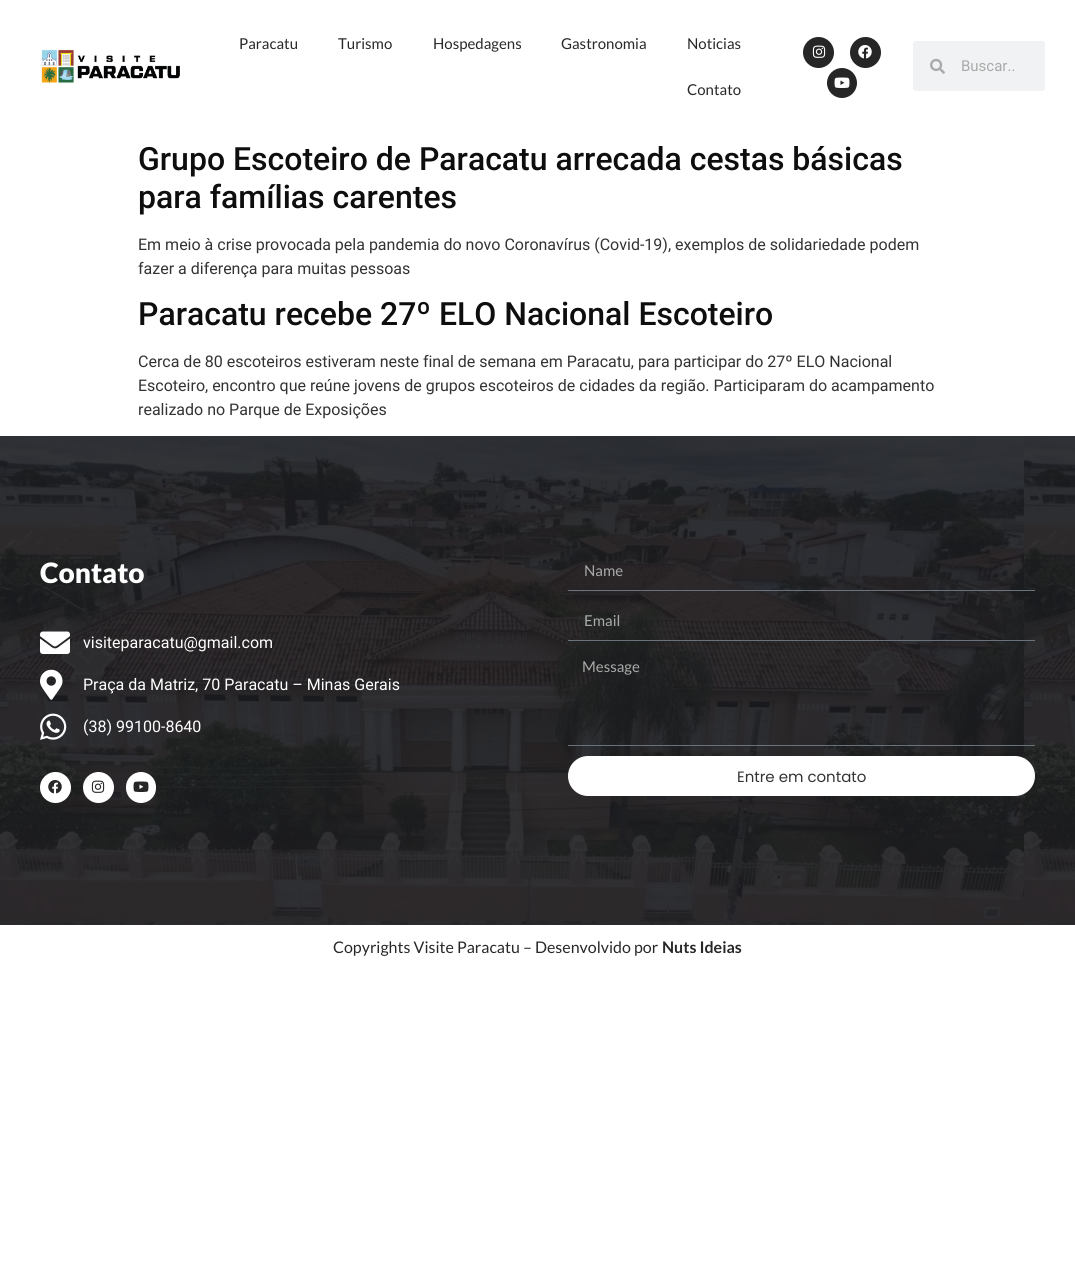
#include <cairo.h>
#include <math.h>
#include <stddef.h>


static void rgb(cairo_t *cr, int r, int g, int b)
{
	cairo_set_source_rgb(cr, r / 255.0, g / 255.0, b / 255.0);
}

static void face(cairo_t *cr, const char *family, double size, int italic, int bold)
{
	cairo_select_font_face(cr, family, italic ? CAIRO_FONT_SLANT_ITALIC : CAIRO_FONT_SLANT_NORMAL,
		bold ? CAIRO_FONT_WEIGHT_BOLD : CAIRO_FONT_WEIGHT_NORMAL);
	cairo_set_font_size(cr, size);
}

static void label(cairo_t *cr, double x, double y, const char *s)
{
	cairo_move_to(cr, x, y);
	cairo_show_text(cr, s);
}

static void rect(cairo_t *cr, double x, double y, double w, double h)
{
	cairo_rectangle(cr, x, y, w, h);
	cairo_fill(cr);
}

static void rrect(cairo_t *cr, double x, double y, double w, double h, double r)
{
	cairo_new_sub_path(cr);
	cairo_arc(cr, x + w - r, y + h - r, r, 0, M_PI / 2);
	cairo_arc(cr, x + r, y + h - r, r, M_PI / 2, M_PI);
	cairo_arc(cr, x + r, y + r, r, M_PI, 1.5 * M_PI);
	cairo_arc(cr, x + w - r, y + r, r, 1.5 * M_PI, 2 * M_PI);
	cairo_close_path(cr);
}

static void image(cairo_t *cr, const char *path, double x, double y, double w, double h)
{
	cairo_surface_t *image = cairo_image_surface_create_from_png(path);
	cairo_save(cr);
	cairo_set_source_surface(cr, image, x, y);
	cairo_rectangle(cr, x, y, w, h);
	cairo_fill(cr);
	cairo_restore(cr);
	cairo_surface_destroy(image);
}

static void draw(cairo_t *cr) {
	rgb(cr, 255, 255, 255);
	cairo_paint(cr);
	image(cr, "image0.png", 41, 49, 139, 34);
	face(cr, "Lato", 15, 0, 0);
	rgb(cr, 40, 40, 40);
	label(cr, 239, 49, "Paracatu");
	label(cr, 338, 49, "Turismo");
	label(cr, 433, 49, "Hospedagens");
	label(cr, 561, 49, "Gastronomia");
	label(cr, 687, 49, "Noticias");
	label(cr, 687, 95, "Contato");
	rgb(cr, 38, 38, 38);
	cairo_new_path(cr);
	cairo_arc(cr, 818.5, 52.5, 15.5, 0, 2 * M_PI);
	cairo_fill(cr);
	image(cr, "image1.png", 812, 45, 14, 13);
	cairo_arc(cr, 865.5, 52.5, 15.5, 0, 2 * M_PI);
	cairo_fill(cr);
	image(cr, "image2.png", 858, 45, 14, 14);
	cairo_arc(cr, 842, 83, 15, 0, 2 * M_PI);
	cairo_fill(cr);
	image(cr, "image3.png", 834, 77, 16, 11);
	rgb(cr, 241, 242, 243);
	rrect(cr, 913, 41, 132, 50, 3);
	cairo_fill(cr);
	image(cr, "image4.png", 930, 58, 15, 16);
	face(cr, "Roboto", 15, 0, 0);
	rgb(cr, 170, 170, 170);
	label(cr, 961, 71, "Buscar..");
	face(cr, "Roboto Medium", 32, 0, 0);
	rgb(cr, 14, 14, 14);
	label(cr, 138, 170, "Grupo Escoteiro de Paracatu arrecada cestas básicas");
	label(cr, 138, 208, "para famílias carentes");
	face(cr, "Roboto", 16, 0, 0);
	rgb(cr, 51, 51, 51);
	label(cr, 138, 250, "Em meio à crise provocada pela pandemia do novo Coronavírus (Covid-19), exemplos de solidariedade podem");
	label(cr, 138, 274, "fazer a diferença para muitas pessoas");
	face(cr, "Roboto Medium", 32, 0, 0);
	rgb(cr, 14, 14, 14);
	label(cr, 138, 325, "Paracatu recebe 27º ELO Nacional Escoteiro");
	face(cr, "Roboto", 16, 0, 0);
	rgb(cr, 51, 51, 51);
	label(cr, 138, 367, "Cerca de 80 escoteiros estiveram neste final de semana em Paracatu, para participar do 27º ELO Nacional");
	label(cr, 138, 391, "Escoteiro, encontro que reúne jovens de grupos escoteiros de cidades da região. Participaram do acampamento");
	label(cr, 138, 415, "realizado no Parque de Exposições");
	image(cr, "image5.png", 0, 436, 1075, 489);
	face(cr, "Lato Black", 28, 0, 0);
	rgb(cr, 255, 255, 255);
	label(cr, 40, 583, "Contato");
	image(cr, "image6.png", 40, 631, 30, 23);
	face(cr, "Roboto", 16, 0, 0);
	label(cr, 83, 648, "visiteparacatu@gmail.com");
	image(cr, "image7.png", 40, 669, 23, 31);
	label(cr, 83, 690, "Praça da Matriz, 70 Paracatu – Minas Gerais");
	image(cr, "image8.png", 40, 713, 27, 27);
	label(cr, 83, 732, "(38) 99100-8640");
	cairo_new_path(cr);
	cairo_arc(cr, 55.5, 787.5, 15.5, 0, 2 * M_PI);
	cairo_fill(cr);
	image(cr, "image9.png", 48, 780, 14, 14);
	cairo_arc(cr, 98.5, 787.5, 15.5, 0, 2 * M_PI);
	cairo_fill(cr);
	image(cr, "image10.png", 91, 780, 14, 13);
	rrect(cr, 126, 772, 30, 31, 15);
	cairo_fill(cr);
	image(cr, "image11.png", 133, 781, 16, 11);
	rgb(cr, 105, 114, 125);
	rect(cr, 568, 590, 467, 1);
	face(cr, "Lato", 15, 0, 0);
	rgb(cr, 170, 170, 170);
	label(cr, 584, 576, "Name");
	rgb(cr, 105, 114, 125);
	rect(cr, 568, 640, 467, 1);
	rgb(cr, 170, 170, 170);
	label(cr, 584, 626, "Email");
	rgb(cr, 105, 114, 125);
	rect(cr, 568, 745, 467, 1);
	rgb(cr, 170, 170, 170);
	label(cr, 582, 672, "Message");
	rgb(cr, 255, 255, 255);
	rrect(cr, 568, 756, 467, 40, 20);
	cairo_fill(cr);
	face(cr, "Poppins", 15, 0, 0);
	rgb(cr, 51, 51, 51);
	label(cr, 737, 782, "Entre em contato");
	face(cr, "Lato", 16, 0, 0);
	rgb(cr, 40, 40, 40);
	label(cr, 333, 953, "Copyrights Visite Paracatu – Desenvolvido por");
	face(cr, "Lato", 16, 0, 1);
	label(cr, 662, 953, "Nuts Ideias");
}

int main(void) {
	cairo_surface_t *surface = cairo_image_surface_create(CAIRO_FORMAT_RGB24, 1075, 1265);
	cairo_t *cr = cairo_create(surface);
	cairo_font_options_t *options = cairo_font_options_create();
	cairo_font_options_set_hint_metrics(options, CAIRO_HINT_METRICS_OFF);
	cairo_font_options_set_hint_style(options, CAIRO_HINT_STYLE_NONE);
	cairo_set_font_options(cr, options);
	cairo_set_miter_limit(cr, 4);
	draw(cr);
	cairo_surface_write_to_png(surface, "render.png");
	cairo_font_options_destroy(options);
	cairo_destroy(cr);
	cairo_surface_destroy(surface);
	return 0;
}
